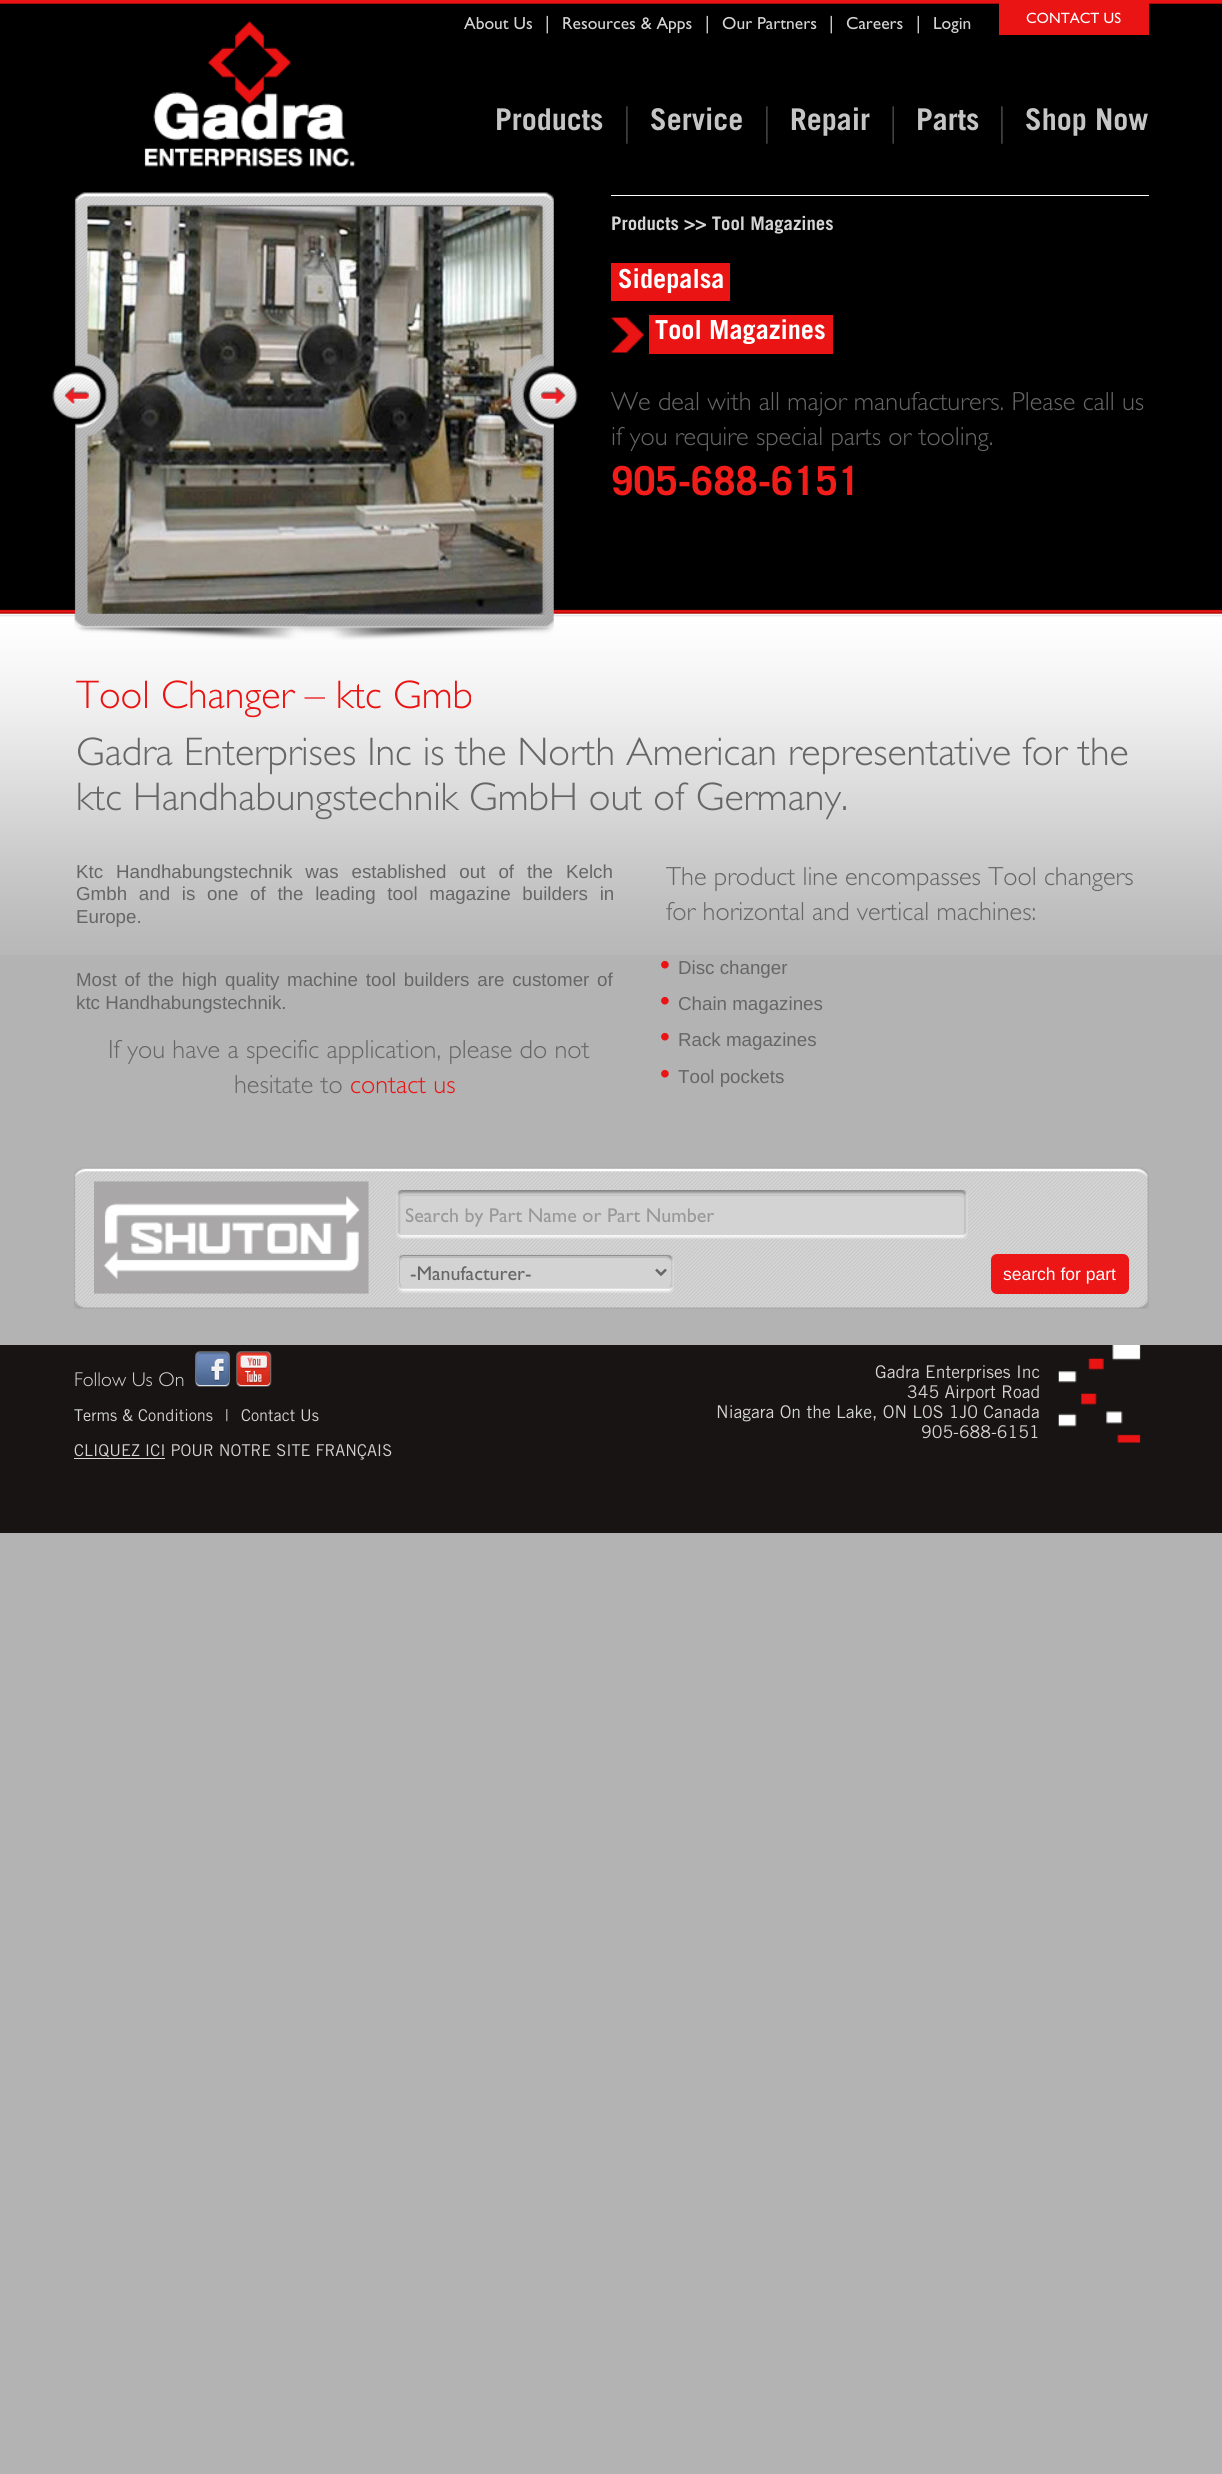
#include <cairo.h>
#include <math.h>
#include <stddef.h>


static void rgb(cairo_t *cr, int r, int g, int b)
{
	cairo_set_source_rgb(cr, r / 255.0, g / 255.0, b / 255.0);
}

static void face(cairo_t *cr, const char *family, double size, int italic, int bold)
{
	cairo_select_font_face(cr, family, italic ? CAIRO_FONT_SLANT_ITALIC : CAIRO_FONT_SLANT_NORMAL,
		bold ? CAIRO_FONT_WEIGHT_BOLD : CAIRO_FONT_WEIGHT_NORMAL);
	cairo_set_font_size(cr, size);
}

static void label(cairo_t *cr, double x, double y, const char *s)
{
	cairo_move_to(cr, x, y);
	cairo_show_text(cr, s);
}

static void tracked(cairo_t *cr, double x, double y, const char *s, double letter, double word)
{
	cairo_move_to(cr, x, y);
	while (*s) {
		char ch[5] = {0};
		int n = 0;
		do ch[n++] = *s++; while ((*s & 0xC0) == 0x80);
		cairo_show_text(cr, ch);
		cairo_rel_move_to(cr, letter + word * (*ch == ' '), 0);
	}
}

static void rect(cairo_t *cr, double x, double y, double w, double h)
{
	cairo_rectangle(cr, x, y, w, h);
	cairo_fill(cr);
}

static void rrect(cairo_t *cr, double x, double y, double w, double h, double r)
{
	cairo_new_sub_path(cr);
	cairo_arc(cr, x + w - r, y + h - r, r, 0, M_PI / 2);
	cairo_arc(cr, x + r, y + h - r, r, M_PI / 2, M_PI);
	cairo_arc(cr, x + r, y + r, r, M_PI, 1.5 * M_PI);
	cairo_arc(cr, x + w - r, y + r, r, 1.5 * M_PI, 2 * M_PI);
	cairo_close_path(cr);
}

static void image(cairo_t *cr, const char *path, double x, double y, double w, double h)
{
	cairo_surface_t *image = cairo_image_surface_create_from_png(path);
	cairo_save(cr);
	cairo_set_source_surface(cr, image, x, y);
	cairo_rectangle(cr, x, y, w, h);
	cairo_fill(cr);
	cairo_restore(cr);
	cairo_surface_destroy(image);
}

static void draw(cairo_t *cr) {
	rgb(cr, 179, 179, 179);
	cairo_paint(cr);
	image(cr, "image0.png", 0, 0, 1222, 955);
	image(cr, "image1.png", 144, 21, 212, 146);
	face(cr, "Gill Sans", 17.5, 0, 0);
	rgb(cr, 212, 212, 212);
	label(cr, 464, 29, "About Us");
	label(cr, 545, 29, "|");
	label(cr, 562, 29, "Resources & Apps");
	label(cr, 705, 29, "|");
	label(cr, 722, 29, "Our Partners");
	label(cr, 829, 29, "|");
	label(cr, 846, 29, "Careers");
	label(cr, 916, 29, "|");
	label(cr, 933, 29, "Login");
	rgb(cr, 233, 20, 19);
	rect(cr, 999, 3, 150, 32);
	face(cr, "Gill Sans", 15, 0, 0);
	rgb(cr, 255, 255, 255);
	label(cr, 1026, 23, "CONTACT US");
	face(cr, "Trade Gothic", 30, 0, 1);
	rgb(cr, 197, 197, 197);
	label(cr, 495, 130, "Products");
	image(cr, "image2.png", 626, 106, 2, 38);
	label(cr, 650, 130, "Service");
	image(cr, "image2.png", 766, 106, 2, 38);
	label(cr, 790, 130, "Repair");
	image(cr, "image3.png", 892, 106, 2, 38);
	label(cr, 916, 130, "Parts");
	image(cr, "image4.png", 1001, 106, 2, 38);
	label(cr, 1025, 130, "Shop Now");
	rgb(cr, 119, 119, 119);
	rect(cr, 87, 203, 466, 4);
	image(cr, "image6.png", 87, 206, 461, 409);
	image(cr, "image5.png", 74, 192, 480, 448);
	image(cr, "image7.png", 52, 372, 50, 47);
	image(cr, "image8.png", 528, 372, 50, 47);
	rgb(cr, 255, 255, 255);
	rect(cr, 611, 195, 538, 1);
	face(cr, "Trade Gothic", 18.75, 0, 1);
	rgb(cr, 212, 212, 212);
	label(cr, 611, 230, "Products >> Tool Magazines");
	rgb(cr, 233, 20, 19);
	rect(cr, 611, 263, 119, 38);
	face(cr, "Trade Gothic", 26.25, 0, 1);
	rgb(cr, 255, 255, 255);
	label(cr, 618, 288, "Sidepalsa");
	image(cr, "image9.png", 611, 317, 33, 36);
	rgb(cr, 233, 20, 19);
	rect(cr, 649, 315, 184, 39);
	rgb(cr, 255, 255, 255);
	label(cr, 655, 339, "Tool Magazines");
	face(cr, "Gill Sans Light", 26.25, 0, 0);
	rgb(cr, 102, 102, 102);
	label(cr, 611, 410, "We deal with all major manufacturers. Please call us");
	label(cr, 611, 445, "if you require special parts or tooling.");
	face(cr, "Trade Gothic", 40, 0, 1);
	rgb(cr, 240, 29, 27);
	label(cr, 611, 495, "905-688-6151");
	face(cr, "Gill Sans Light", 40, 0, 0);
	rgb(cr, 233, 20, 19);
	label(cr, 76, 708, "Tool Changer – ktc Gmb");
	rgb(cr, 102, 102, 102);
	label(cr, 76, 765, "Gadra Enterprises Inc is the North American representative for the");
	label(cr, 76, 810, "ktc Handhabungstechnik GmbH out of Germany.");
	face(cr, "Liberation Sans", 18.75, 0, 0);
	tracked(cr, 76, 878, "Ktc Handhabungstechnik was established out of the Kelch", 0, 7.75);
	tracked(cr, 76, 900, "Gmbh and is one of the leading tool magazine builders in", 0, 6.5);
	label(cr, 76, 923, "Europe.");
	tracked(cr, 76, 986, "Most of the high quality machine tool builders are customer of", 0, 2.6);
	label(cr, 76, 1009, "ktc Handhabungstechnik.");
	face(cr, "Gill Sans Light", 26.25, 0, 0);
	label(cr, 108, 1058, "If you have a specific application, please do not");
	label(cr, 234, 1093, "hesitate to");
	rgb(cr, 233, 20, 19);
	label(cr, 350, 1093, "contact us");
	rgb(cr, 102, 102, 102);
	label(cr, 666, 885, "The product line encompasses Tool changers");
	label(cr, 666, 920, "for horizontal and vertical machines:");
	face(cr, "Liberation Sans", 28, 0, 0);
	rgb(cr, 233, 20, 19);
	label(cr, 660, 974, "•");
	face(cr, "Liberation Sans", 18.75, 0, 0);
	rgb(cr, 102, 102, 102);
	label(cr, 678, 974, "Disc changer");
	face(cr, "Liberation Sans", 28, 0, 0);
	rgb(cr, 233, 20, 19);
	label(cr, 660, 1010, "•");
	face(cr, "Liberation Sans", 18.75, 0, 0);
	rgb(cr, 102, 102, 102);
	label(cr, 678, 1010, "Chain magazines");
	face(cr, "Liberation Sans", 28, 0, 0);
	rgb(cr, 233, 20, 19);
	label(cr, 660, 1046, "•");
	face(cr, "Liberation Sans", 18.75, 0, 0);
	rgb(cr, 102, 102, 102);
	label(cr, 678, 1046, "Rack magazines");
	face(cr, "Liberation Sans", 28, 0, 0);
	rgb(cr, 233, 20, 19);
	label(cr, 660, 1083, "•");
	face(cr, "Liberation Sans", 18.75, 0, 0);
	rgb(cr, 102, 102, 102);
	label(cr, 678, 1083, "Tool pockets");
	image(cr, "image10.png", 74, 1167, 1075, 142);
	image(cr, "image11.png", 94, 1181, 275, 113);
	image(cr, "image12.png", 396, 1190, 572, 49);
	rgb(cr, 211, 211, 211);
	rrect(cr, 400, 1194, 564, 41, 4);
	cairo_fill(cr);
	rgb(cr, 195, 195, 195);
	cairo_new_path(cr);
	cairo_move_to(cr, 404, 1196);
	cairo_line_to(cr, 960, 1196);
	cairo_curve_to(cr, 962, 1196, 963, 1197, 964, 1198);
	cairo_curve_to(cr, 964, 1196, 962, 1195, 960, 1195);
	cairo_line_to(cr, 404, 1195);
	cairo_curve_to(cr, 402, 1195, 401, 1196, 401, 1198);
	cairo_curve_to(cr, 402, 1197, 403, 1196, 404, 1196);
	cairo_close_path(cr);
	cairo_fill(cr);
	rgb(cr, 204, 204, 204);
	cairo_set_fill_rule(cr, CAIRO_FILL_RULE_EVEN_ODD);
	cairo_new_path(cr);
	cairo_move_to(cr, 404, 1194);
	cairo_line_to(cr, 960, 1194);
	cairo_curve_to(cr, 962, 1194, 964, 1195, 964, 1198);
	cairo_line_to(cr, 964, 1231);
	cairo_curve_to(cr, 964, 1233, 962, 1235, 960, 1235);
	cairo_line_to(cr, 404, 1235);
	cairo_curve_to(cr, 402, 1235, 400, 1233, 400, 1231);
	cairo_line_to(cr, 400, 1198);
	cairo_curve_to(cr, 400, 1195, 402, 1194, 404, 1194);
	cairo_close_path(cr);
	cairo_move_to(cr, 404, 1195);
	cairo_line_to(cr, 960, 1195);
	cairo_curve_to(cr, 962, 1195, 964, 1196, 964, 1198);
	cairo_line_to(cr, 964, 1231);
	cairo_curve_to(cr, 964, 1233, 962, 1235, 960, 1235);
	cairo_line_to(cr, 404, 1235);
	cairo_curve_to(cr, 402, 1235, 401, 1233, 401, 1231);
	cairo_line_to(cr, 401, 1198);
	cairo_curve_to(cr, 401, 1196, 402, 1195, 404, 1195);
	cairo_close_path(cr);
	cairo_fill(cr);
	face(cr, "Gill Sans", 20, 0, 0);
	rgb(cr, 153, 153, 153);
	label(cr, 405, 1222, "Search by Part Name or Part Number");
	image(cr, "image13.png", 397, 1254, 277, 40);
	rgb(cr, 211, 211, 211);
	rrect(cr, 399, 1256, 272, 32, 6);
	cairo_fill(cr);
	rgb(cr, 187, 187, 187);
	cairo_new_path(cr);
	cairo_move_to(cr, 405, 1256);
	cairo_line_to(cr, 665, 1256);
	cairo_curve_to(cr, 668, 1256, 671, 1259, 671, 1262);
	cairo_line_to(cr, 671, 1281);
	cairo_curve_to(cr, 671, 1285, 668, 1288, 665, 1288);
	cairo_line_to(cr, 405, 1288);
	cairo_curve_to(cr, 402, 1288, 399, 1285, 399, 1281);
	cairo_line_to(cr, 399, 1262);
	cairo_curve_to(cr, 399, 1259, 402, 1256, 405, 1256);
	cairo_close_path(cr);
	cairo_move_to(cr, 405, 1258);
	cairo_line_to(cr, 665, 1258);
	cairo_curve_to(cr, 668, 1258, 671, 1260, 671, 1262);
	cairo_line_to(cr, 671, 1281);
	cairo_curve_to(cr, 671, 1285, 668, 1288, 665, 1288);
	cairo_line_to(cr, 405, 1288);
	cairo_curve_to(cr, 402, 1288, 400, 1285, 400, 1281);
	cairo_line_to(cr, 400, 1262);
	cairo_curve_to(cr, 400, 1260, 402, 1258, 405, 1258);
	cairo_close_path(cr);
	cairo_fill(cr);
	cairo_new_path(cr);
	cairo_move_to(cr, 656, 1269.5);
	cairo_line_to(cr, 661, 1274.5);
	cairo_line_to(cr, 666, 1269.5);
	rgb(cr, 102, 102, 102);
	cairo_set_line_width(cr, 2.5);
	cairo_stroke(cr);
	label(cr, 410, 1280, "-Manufacturer-");
	rgb(cr, 235, 22, 21);
	rrect(cr, 991, 1254, 138, 40, 6);
	cairo_fill(cr);
	face(cr, "Liberation Sans", 17.5, 0, 0);
	rgb(cr, 255, 255, 255);
	label(cr, 1003, 1280, "search for part");
	rgb(cr, 24, 20, 20);
	rect(cr, 0, 1345, 1222, 188);
	face(cr, "Gill Sans Light", 20, 0, 0);
	rgb(cr, 212, 212, 212);
	label(cr, 74, 1386, "Follow Us On");
	image(cr, "image14.png", 195, 1351, 35, 36);
	image(cr, "image15.png", 236, 1351, 36, 36);
	face(cr, "Trade Gothic", 16.25, 0, 0);
	label(cr, 74, 1421, "Terms & Conditions");
	label(cr, 225, 1421, "|");
	label(cr, 241, 1421, "Contact Us");
	rgb(cr, 215, 215, 216);
	rect(cr, 74, 1458, 91, 1);
	rgb(cr, 212, 212, 212);
	label(cr, 74, 1456, "CLIQUEZ ICI POUR NOTRE SITE FRANÇAIS");
	face(cr, "Trade Gothic", 17.5, 0, 0);
	label(cr, 875, 1378, "Gadra Enterprises Inc");
	label(cr, 907, 1398, "345 Airport Road");
	label(cr, 716, 1418, "Niagara On the Lake, ON L0S 1J0 Canada");
	label(cr, 921, 1438, "905-688-6151");
	image(cr, "image16.png", 1058, 1345, 83, 98);
}

int main(void) {
	cairo_surface_t *surface = cairo_image_surface_create(CAIRO_FORMAT_RGB24, 1222, 2474);
	cairo_t *cr = cairo_create(surface);
	cairo_font_options_t *options = cairo_font_options_create();
	cairo_font_options_set_hint_metrics(options, CAIRO_HINT_METRICS_OFF);
	cairo_font_options_set_hint_style(options, CAIRO_HINT_STYLE_NONE);
	cairo_set_font_options(cr, options);
	cairo_set_miter_limit(cr, 4);
	draw(cr);
	cairo_surface_write_to_png(surface, "render.png");
	cairo_font_options_destroy(options);
	cairo_destroy(cr);
	cairo_surface_destroy(surface);
	return 0;
}
